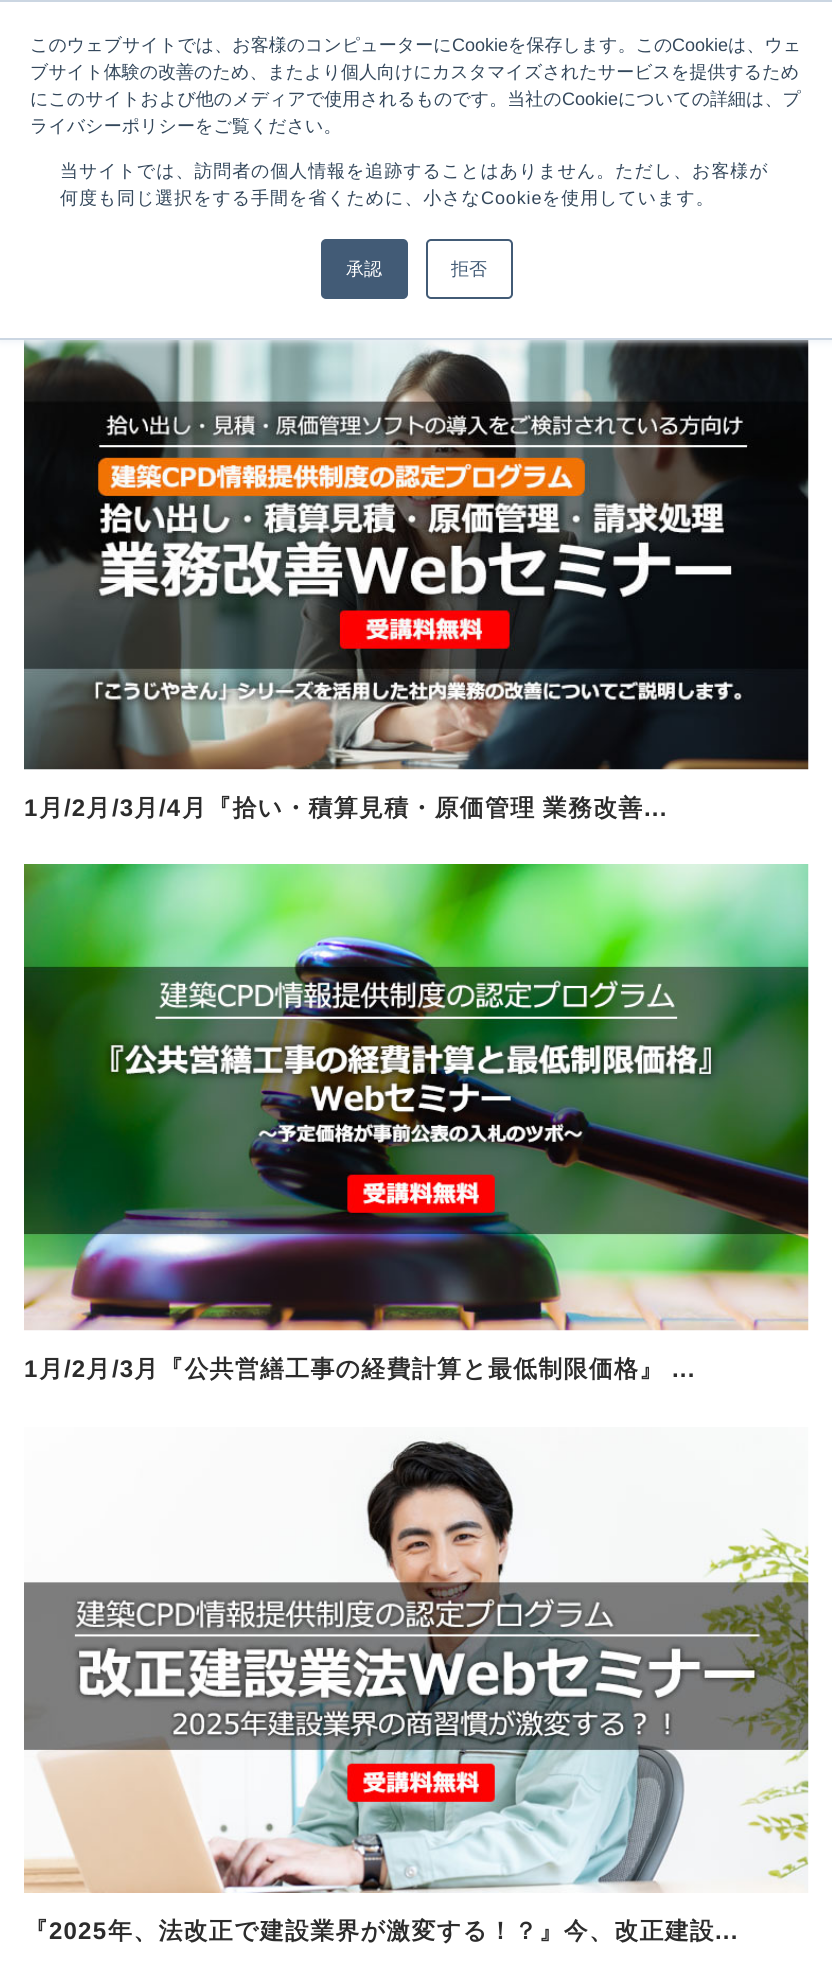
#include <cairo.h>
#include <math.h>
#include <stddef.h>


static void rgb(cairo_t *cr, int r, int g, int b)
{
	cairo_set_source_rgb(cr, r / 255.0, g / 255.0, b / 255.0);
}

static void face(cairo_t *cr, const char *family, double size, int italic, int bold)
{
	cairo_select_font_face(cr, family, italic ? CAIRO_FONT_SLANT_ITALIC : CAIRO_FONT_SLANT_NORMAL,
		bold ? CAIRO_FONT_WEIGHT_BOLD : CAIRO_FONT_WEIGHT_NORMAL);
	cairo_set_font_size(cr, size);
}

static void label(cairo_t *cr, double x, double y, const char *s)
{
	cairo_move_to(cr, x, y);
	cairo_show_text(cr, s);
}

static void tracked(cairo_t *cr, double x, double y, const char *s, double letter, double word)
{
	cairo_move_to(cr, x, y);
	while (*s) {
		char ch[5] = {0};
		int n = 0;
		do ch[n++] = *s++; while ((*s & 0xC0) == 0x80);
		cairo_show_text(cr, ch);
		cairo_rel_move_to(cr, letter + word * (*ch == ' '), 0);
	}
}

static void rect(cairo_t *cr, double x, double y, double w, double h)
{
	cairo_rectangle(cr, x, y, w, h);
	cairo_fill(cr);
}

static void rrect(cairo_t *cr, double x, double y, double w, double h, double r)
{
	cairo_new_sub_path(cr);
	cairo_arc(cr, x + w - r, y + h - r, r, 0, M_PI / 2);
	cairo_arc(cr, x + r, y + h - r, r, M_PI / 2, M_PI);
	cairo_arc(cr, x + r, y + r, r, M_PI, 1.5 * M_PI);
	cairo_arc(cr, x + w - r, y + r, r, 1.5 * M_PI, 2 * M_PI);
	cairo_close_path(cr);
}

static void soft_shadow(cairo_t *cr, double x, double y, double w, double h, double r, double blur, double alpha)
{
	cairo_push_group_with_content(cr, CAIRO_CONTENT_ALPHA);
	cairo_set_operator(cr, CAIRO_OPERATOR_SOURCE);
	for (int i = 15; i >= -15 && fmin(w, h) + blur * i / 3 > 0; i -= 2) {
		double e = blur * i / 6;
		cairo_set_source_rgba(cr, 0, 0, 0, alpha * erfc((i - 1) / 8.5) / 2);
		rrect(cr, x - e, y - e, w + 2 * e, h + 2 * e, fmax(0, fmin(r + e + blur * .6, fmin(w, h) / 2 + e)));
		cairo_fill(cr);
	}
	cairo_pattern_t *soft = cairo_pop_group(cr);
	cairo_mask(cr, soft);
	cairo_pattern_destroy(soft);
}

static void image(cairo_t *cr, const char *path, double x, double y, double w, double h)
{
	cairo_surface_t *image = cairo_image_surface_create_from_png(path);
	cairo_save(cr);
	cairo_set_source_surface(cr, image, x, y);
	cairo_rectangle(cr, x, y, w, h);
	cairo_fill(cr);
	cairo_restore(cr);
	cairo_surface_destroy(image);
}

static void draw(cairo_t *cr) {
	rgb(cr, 255, 255, 255);
	cairo_paint(cr);
	image(cr, "image0.png", 24, 340, 785, 430);
	rgb(cr, 234, 240, 246);
	soft_shadow(cr, 0, 2, 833, 339, 0, 4, 1);
	rgb(cr, 255, 255, 255);
	rect(cr, 0, 2, 832, 336);
	rgb(cr, 203, 214, 226);
	rect(cr, 0, 0, 832, 2);
	rect(cr, 0, 338, 832, 2);
	face(cr, "WenQuanYi Zen Hei Medium", 18, 0, 0);
	rgb(cr, 51, 71, 91);
	label(cr, 30, 51, "このウェブサイトでは、お客様のコンピューターに");
	face(cr, "Liberation Sans", 18, 0, 0);
	label(cr, 452, 51, "Cookie");
	face(cr, "WenQuanYi Zen Hei Medium", 18, 0, 0);
	label(cr, 508, 51, "を保存します。この");
	face(cr, "Liberation Sans", 18, 0, 0);
	label(cr, 672, 51, "Cookie");
	face(cr, "WenQuanYi Zen Hei Medium", 18, 0, 0);
	label(cr, 728, 51, "は、ウェ");
	label(cr, 30, 78, "ブサイト体験の改善のため、またより個人向けにカスタマイズされたサービスを提供するため");
	label(cr, 30, 105, "にこのサイトおよび他のメディアで使用されるものです。当社の");
	face(cr, "Liberation Sans", 18, 0, 0);
	label(cr, 562, 105, "Cookie");
	face(cr, "WenQuanYi Zen Hei Medium", 18, 0, 0);
	label(cr, 618, 105, "についての詳細は、プ");
	label(cr, 30, 132, "ライバシーポリシーをご覧ください。");
	tracked(cr, 60, 177, "当サイトでは、訪問者の個人情報を追跡することはありません。ただし、お客様が", 0.9, 0);
	tracked(cr, 60, 204, "何度も同じ選択をする手間を省くために、小さな", 0.9, 0);
	face(cr, "Liberation Sans", 18, 0, 0);
	tracked(cr, 481, 204, "Cookie", 0.9, 0);
	face(cr, "WenQuanYi Zen Hei Medium", 18, 0, 0);
	tracked(cr, 542, 204, "を使用しています。", 0.9, 0);
	rgb(cr, 66, 91, 118);
	rrect(cr, 322, 240, 85, 58, 4);
	cairo_fill_preserve(cr);
	cairo_stroke(cr);
	rgb(cr, 255, 255, 255);
	label(cr, 346, 275, "承認");
	rrect(cr, 427, 240, 85, 58, 4);
	rgb(cr, 66, 91, 118);
	cairo_stroke(cr);
	label(cr, 451, 275, "拒否");
	face(cr, "Liberation Sans", 24, 0, 1);
	rgb(cr, 44, 44, 44);
	tracked(cr, 24, 816, "1", 1.2, 0);
	face(cr, "WenQuanYi Zen Hei", 24, 0, 1);
	tracked(cr, 39, 816, "月", 1.2, 0);
	face(cr, "Liberation Sans", 24, 0, 1);
	tracked(cr, 64, 816, "/2", 1.2, 0);
	face(cr, "WenQuanYi Zen Hei", 24, 0, 1);
	tracked(cr, 86, 816, "月", 1.2, 0);
	face(cr, "Liberation Sans", 24, 0, 1);
	tracked(cr, 112, 816, "/3", 1.2, 0);
	face(cr, "WenQuanYi Zen Hei", 24, 0, 1);
	tracked(cr, 134, 816, "月", 1.2, 0);
	face(cr, "Liberation Sans", 24, 0, 1);
	tracked(cr, 159, 816, "/4", 1.2, 0);
	face(cr, "WenQuanYi Zen Hei", 24, 0, 1);
	tracked(cr, 182, 816, "月『拾い・積算見積・原価管理 業務改善", 1.2, -1);
	face(cr, "Liberation Sans", 24, 0, 1);
	tracked(cr, 644, 816, "...", 1.2, 0);
	image(cr, "image1.png", 24, 864, 785, 467);
	tracked(cr, 24, 1377, "1", 1.2, 0);
	face(cr, "WenQuanYi Zen Hei", 24, 0, 1);
	tracked(cr, 39, 1377, "月", 1.2, 0);
	face(cr, "Liberation Sans", 24, 0, 1);
	tracked(cr, 64, 1377, "/2", 1.2, 0);
	face(cr, "WenQuanYi Zen Hei", 24, 0, 1);
	tracked(cr, 86, 1377, "月", 1.2, 0);
	face(cr, "Liberation Sans", 24, 0, 1);
	tracked(cr, 112, 1377, "/3", 1.2, 0);
	face(cr, "WenQuanYi Zen Hei", 24, 0, 1);
	tracked(cr, 134, 1377, "月『公共営繕工事の経費計算と最低制限価格』", 1.2, 0);
	face(cr, "Liberation Sans", 24, 0, 1);
	tracked(cr, 672, 1377, "...", 1.2, 0);
	image(cr, "image2.png", 24, 1427, 785, 466);
	face(cr, "WenQuanYi Zen Hei", 24, 0, 1);
	tracked(cr, 24, 1939, "『", 1.2, 0);
	face(cr, "Liberation Sans", 24, 0, 1);
	tracked(cr, 49, 1939, "2025", 1.2, 0);
	face(cr, "WenQuanYi Zen Hei", 24, 0, 1);
	tracked(cr, 108, 1939, "年、法改正で建設業界が激変する！？』今、改正建設", 1.2, 0);
	face(cr, "Liberation Sans", 24, 0, 1);
	tracked(cr, 715, 1939, "...", 1.2, 0);
}

int main(void) {
	cairo_surface_t *surface = cairo_image_surface_create(CAIRO_FORMAT_RGB24, 832, 1982);
	cairo_t *cr = cairo_create(surface);
	cairo_font_options_t *options = cairo_font_options_create();
	cairo_font_options_set_hint_metrics(options, CAIRO_HINT_METRICS_OFF);
	cairo_font_options_set_hint_style(options, CAIRO_HINT_STYLE_NONE);
	cairo_set_font_options(cr, options);
	cairo_set_miter_limit(cr, 4);
	draw(cr);
	cairo_surface_write_to_png(surface, "render.png");
	cairo_font_options_destroy(options);
	cairo_destroy(cr);
	cairo_surface_destroy(surface);
	return 0;
}
